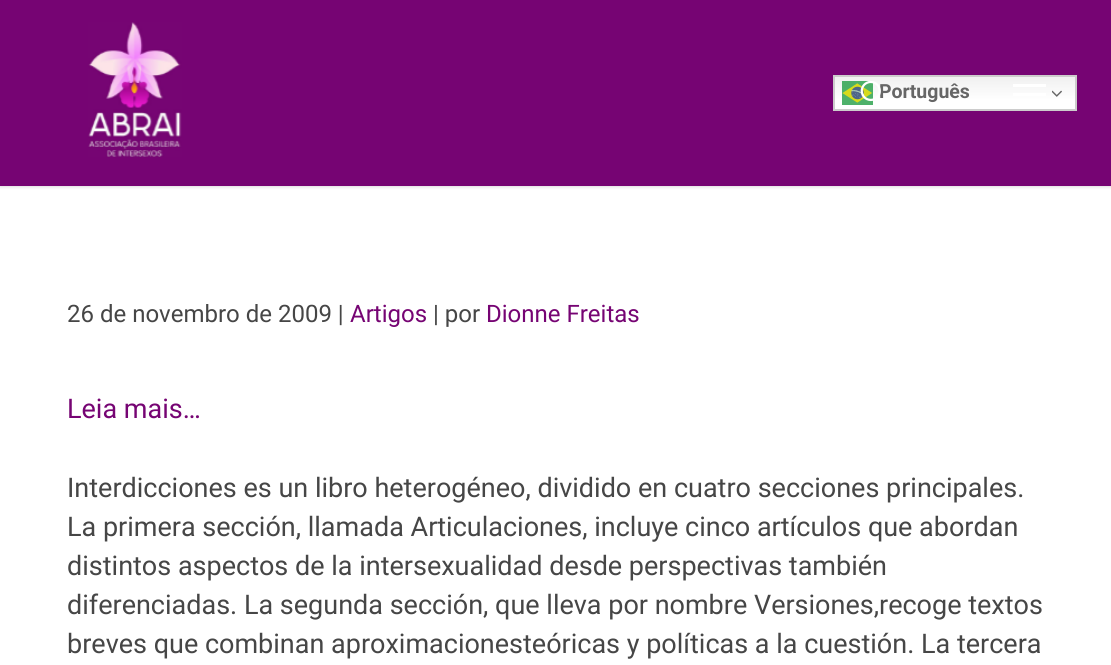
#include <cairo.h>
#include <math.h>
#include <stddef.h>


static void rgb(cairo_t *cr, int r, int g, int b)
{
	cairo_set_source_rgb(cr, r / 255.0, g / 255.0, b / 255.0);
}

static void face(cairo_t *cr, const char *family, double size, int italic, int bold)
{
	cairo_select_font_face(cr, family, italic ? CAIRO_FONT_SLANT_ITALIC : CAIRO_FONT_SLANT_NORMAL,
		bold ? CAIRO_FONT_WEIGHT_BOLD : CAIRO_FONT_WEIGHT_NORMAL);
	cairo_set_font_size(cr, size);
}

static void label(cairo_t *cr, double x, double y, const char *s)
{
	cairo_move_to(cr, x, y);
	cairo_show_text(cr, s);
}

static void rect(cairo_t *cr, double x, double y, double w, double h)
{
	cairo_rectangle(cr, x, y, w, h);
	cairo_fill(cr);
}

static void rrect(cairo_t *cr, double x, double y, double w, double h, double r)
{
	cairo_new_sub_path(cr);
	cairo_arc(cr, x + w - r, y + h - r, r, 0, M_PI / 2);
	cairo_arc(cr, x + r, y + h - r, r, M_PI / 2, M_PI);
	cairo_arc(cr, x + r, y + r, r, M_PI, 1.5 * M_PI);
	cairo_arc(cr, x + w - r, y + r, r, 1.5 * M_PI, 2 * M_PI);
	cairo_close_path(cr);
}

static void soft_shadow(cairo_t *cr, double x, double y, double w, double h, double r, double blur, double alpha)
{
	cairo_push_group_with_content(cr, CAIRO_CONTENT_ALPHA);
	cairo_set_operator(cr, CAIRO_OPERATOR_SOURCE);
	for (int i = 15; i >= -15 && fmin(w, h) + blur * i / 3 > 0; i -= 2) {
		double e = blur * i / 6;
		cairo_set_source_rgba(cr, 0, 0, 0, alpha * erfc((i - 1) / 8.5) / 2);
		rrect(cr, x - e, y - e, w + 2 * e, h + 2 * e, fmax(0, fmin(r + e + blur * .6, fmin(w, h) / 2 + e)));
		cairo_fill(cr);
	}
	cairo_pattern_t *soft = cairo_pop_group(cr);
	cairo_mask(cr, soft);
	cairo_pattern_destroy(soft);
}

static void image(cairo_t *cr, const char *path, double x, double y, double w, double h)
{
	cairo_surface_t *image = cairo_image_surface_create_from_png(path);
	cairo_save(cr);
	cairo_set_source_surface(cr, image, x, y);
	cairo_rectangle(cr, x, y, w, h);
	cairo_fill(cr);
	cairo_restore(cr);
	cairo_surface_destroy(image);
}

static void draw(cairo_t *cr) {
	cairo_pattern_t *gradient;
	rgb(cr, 255, 255, 255);
	cairo_paint(cr);
	rgb(cr, 0, 0, 0);
	soft_shadow(cr, 0, 0, 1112, 186, 0, 2, 0.22);
	rgb(cr, 118, 4, 115);
	rect(cr, 0, 0, 1111, 186);
	image(cr, "image0.png", 88, 22, 94, 135);
	gradient = cairo_pattern_create_linear(955, 75, 955, 111);
	cairo_pattern_add_color_stop_rgba(gradient, 0, 0.937, 0.937, 0.937, 1);
	cairo_pattern_add_color_stop_rgba(gradient, 0.7, 1, 1, 1, 1);
	cairo_set_source(cr, gradient);
	cairo_pattern_destroy(gradient);
	rect(cr, 835, 77, 240, 32);
	cairo_rectangle(cr, 834, 76, 242, 34);
	rgb(cr, 204, 204, 204);
	cairo_stroke(cr);
	image(cr, "image2.png", 842, 81, 31, 24);
	face(cr, "Roboto", 19.5, 0, 1);
	rgb(cr, 102, 102, 102);
	label(cr, 879, 98, "Português");
	image(cr, "image1.png", 860, 81, 21, 21);
	image(cr, "image3.png", 1052, 90, 10, 7);
	rgb(cr, 255, 255, 255);
	rect(cr, 1013, 84, 33, 3);
	rect(cr, 1013, 93, 33, 3);
	face(cr, "Roboto", 24, 0, 0);
	rgb(cr, 70, 70, 70);
	label(cr, 67, 322, "26 de novembro de 2009 |");
	rgb(cr, 118, 4, 115);
	label(cr, 350, 322, "Artigos");
	rgb(cr, 70, 70, 70);
	label(cr, 433, 322, "| por");
	rgb(cr, 118, 4, 115);
	label(cr, 486, 322, "Dionne Freitas");
	face(cr, "Roboto", 27, 0, 0);
	label(cr, 67, 418, "Leia mais…");
	rgb(cr, 70, 70, 70);
	label(cr, 67, 497, "Interdicciones es un libro heterogéneo, dividido en cuatro secciones principales.");
	label(cr, 67, 536, "La primera sección, llamada Articulaciones, incluye cinco artículos que abordan");
	label(cr, 67, 575, "distintos aspectos de la intersexualidad desde perspectivas también");
	label(cr, 67, 614, "diferenciadas. La segunda sección, que lleva por nombre Versiones,recoge textos");
	label(cr, 67, 653, "breves que combinan aproximacionesteóricas y políticas a la cuestión. La tercera");
}

int main(void) {
	cairo_surface_t *surface = cairo_image_surface_create(CAIRO_FORMAT_RGB24, 1111, 665);
	cairo_t *cr = cairo_create(surface);
	cairo_font_options_t *options = cairo_font_options_create();
	cairo_font_options_set_hint_metrics(options, CAIRO_HINT_METRICS_OFF);
	cairo_font_options_set_hint_style(options, CAIRO_HINT_STYLE_NONE);
	cairo_set_font_options(cr, options);
	cairo_set_miter_limit(cr, 4);
	draw(cr);
	cairo_surface_write_to_png(surface, "render.png");
	cairo_font_options_destroy(options);
	cairo_destroy(cr);
	cairo_surface_destroy(surface);
	return 0;
}
